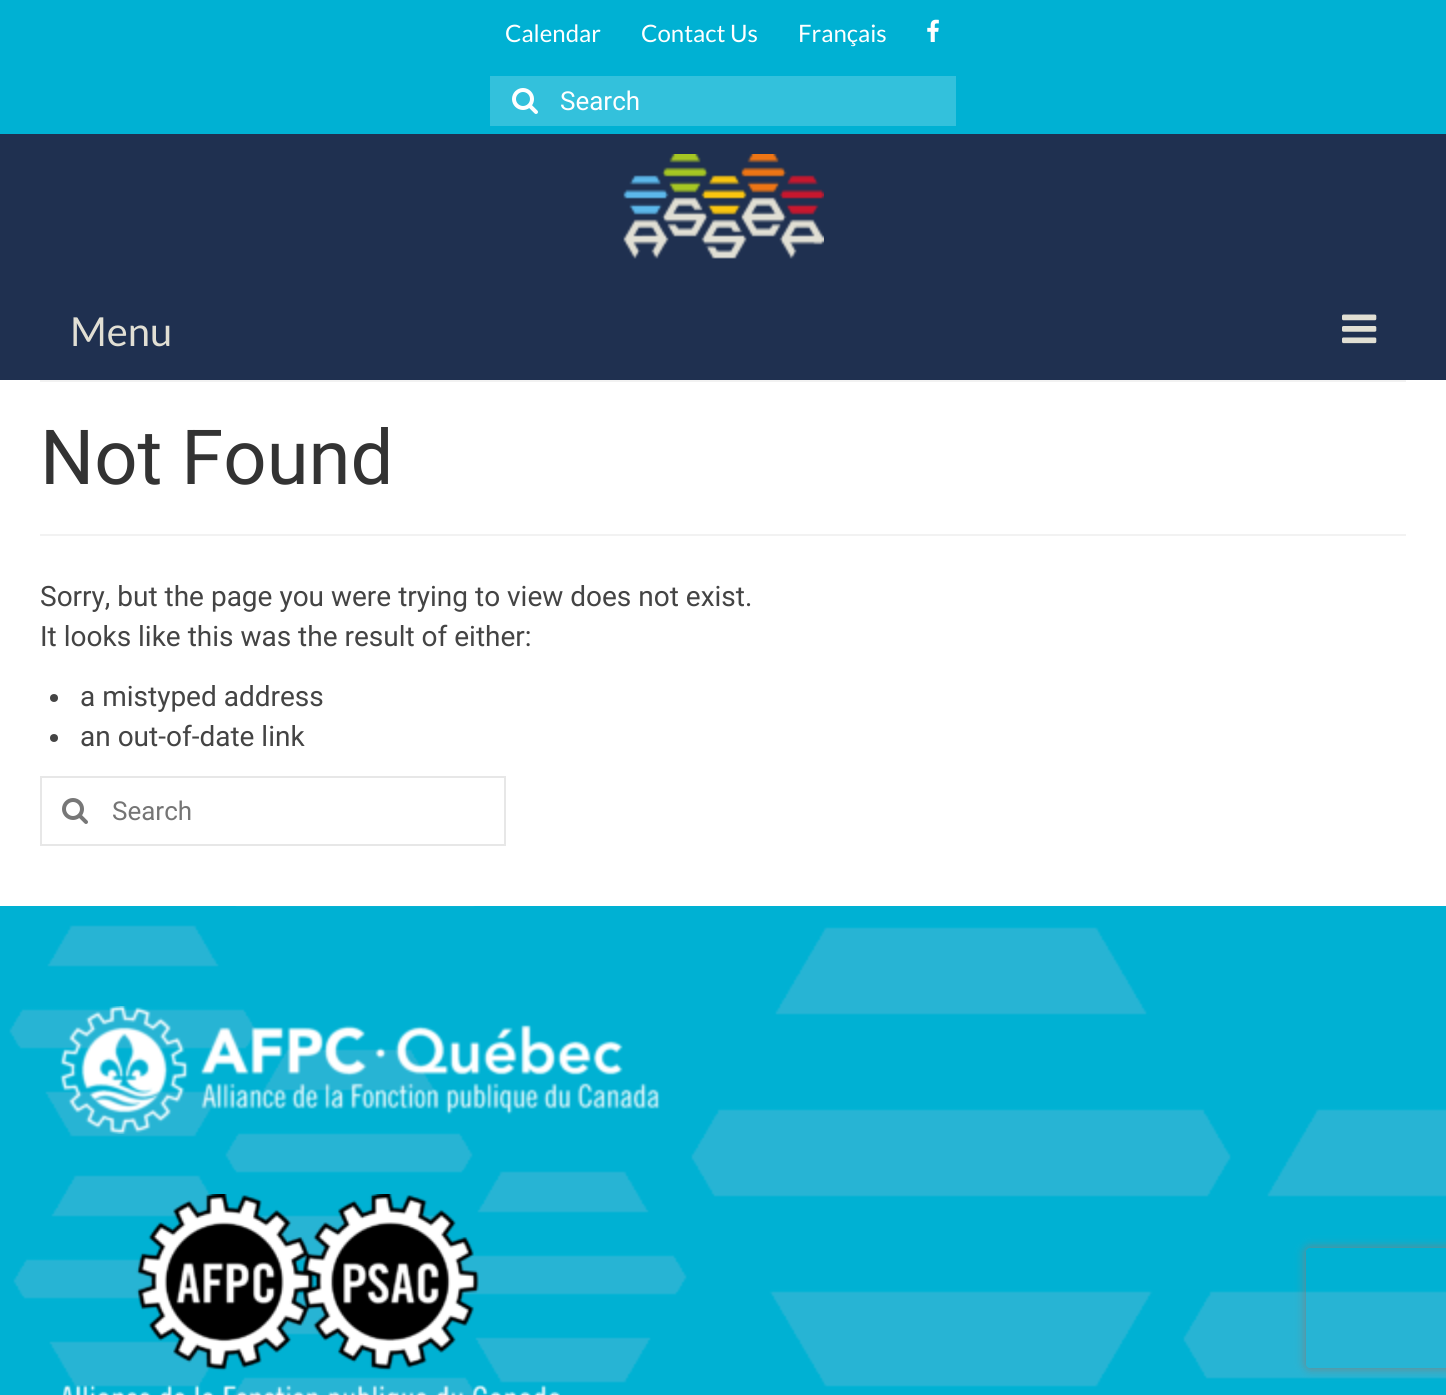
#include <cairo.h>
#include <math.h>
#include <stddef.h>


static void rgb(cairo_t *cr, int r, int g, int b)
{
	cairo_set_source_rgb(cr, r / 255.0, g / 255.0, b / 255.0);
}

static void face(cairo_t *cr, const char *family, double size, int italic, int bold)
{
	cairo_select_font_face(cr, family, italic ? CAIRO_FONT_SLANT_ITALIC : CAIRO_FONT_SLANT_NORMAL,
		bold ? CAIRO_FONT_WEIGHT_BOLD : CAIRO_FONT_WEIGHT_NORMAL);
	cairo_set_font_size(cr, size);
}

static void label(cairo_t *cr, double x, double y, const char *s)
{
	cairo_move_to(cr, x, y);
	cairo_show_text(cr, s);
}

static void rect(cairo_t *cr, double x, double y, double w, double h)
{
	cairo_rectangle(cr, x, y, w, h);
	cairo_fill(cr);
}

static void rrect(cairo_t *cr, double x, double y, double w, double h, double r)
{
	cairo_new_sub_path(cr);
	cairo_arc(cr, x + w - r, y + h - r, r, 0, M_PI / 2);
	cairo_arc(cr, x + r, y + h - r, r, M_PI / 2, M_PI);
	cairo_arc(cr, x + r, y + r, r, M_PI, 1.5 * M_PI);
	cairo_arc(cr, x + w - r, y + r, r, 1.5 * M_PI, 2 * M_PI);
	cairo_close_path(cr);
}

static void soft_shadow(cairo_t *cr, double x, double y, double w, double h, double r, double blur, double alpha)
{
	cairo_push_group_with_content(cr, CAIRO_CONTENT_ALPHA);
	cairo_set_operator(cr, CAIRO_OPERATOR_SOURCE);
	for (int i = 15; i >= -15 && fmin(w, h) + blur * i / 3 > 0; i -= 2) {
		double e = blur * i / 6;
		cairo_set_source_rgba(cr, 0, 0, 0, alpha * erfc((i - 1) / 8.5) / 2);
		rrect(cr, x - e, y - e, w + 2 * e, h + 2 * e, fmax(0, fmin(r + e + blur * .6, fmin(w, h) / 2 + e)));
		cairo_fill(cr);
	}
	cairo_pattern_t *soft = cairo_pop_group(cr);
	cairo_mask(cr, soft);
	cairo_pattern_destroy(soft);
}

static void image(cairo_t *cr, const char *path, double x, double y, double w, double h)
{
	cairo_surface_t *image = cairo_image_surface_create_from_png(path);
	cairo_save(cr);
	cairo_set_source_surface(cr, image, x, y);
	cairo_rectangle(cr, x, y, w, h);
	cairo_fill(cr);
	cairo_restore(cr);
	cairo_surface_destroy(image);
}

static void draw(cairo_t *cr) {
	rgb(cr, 255, 255, 255);
	cairo_paint(cr);
	rgb(cr, 31, 48, 80);
	rect(cr, 0, 134, 1446, 246);
	rgb(cr, 0, 177, 211);
	rect(cr, 0, 0, 1446, 134);
	face(cr, "Lato", 24, 0, 0);
	rgb(cr, 255, 255, 255);
	label(cr, 505, 42, "Calendar");
	label(cr, 641, 42, "Contact Us");
	label(cr, 798, 42, "Français");
	image(cr, "image0.png", 927, 19, 12, 23);
	rgb(cr, 51, 193, 220);
	rect(cr, 490, 76, 466, 50);
	image(cr, "image1.png", 512, 88, 26, 26);
	face(cr, "Roboto", 26, 0, 0);
	rgb(cr, 255, 255, 255);
	label(cr, 560, 110, "Search");
	image(cr, "image2.png", 623, 154, 201, 105);
	face(cr, "Lato", 40, 0, 0);
	rgb(cr, 225, 223, 212);
	label(cr, 70, 346, "Menu");
	image(cr, "image3.png", 1342, 314, 35, 30);
	rgb(cr, 242, 242, 242);
	rect(cr, 40, 380, 1366, 2);
	rect(cr, 40, 534, 1366, 2);
	face(cr, "Roboto", 76, 0, 0);
	rgb(cr, 51, 51, 51);
	label(cr, 40, 484, "Not Found");
	face(cr, "Roboto", 28, 0, 0);
	rgb(cr, 68, 68, 68);
	label(cr, 40, 606, "Sorry, but the page you were trying to view does not exist.");
	label(cr, 40, 646, "It looks like this was the result of either:");
	cairo_new_path(cr);
	cairo_arc(cr, 54, 698, 4, 0, 2 * M_PI);
	cairo_fill(cr);
	label(cr, 80, 706, "a mistyped address");
	cairo_new_path(cr);
	cairo_arc(cr, 54, 738, 4, 0, 2 * M_PI);
	cairo_fill(cr);
	label(cr, 80, 746, "an out-of-date link");
	cairo_rectangle(cr, 41, 777, 464, 68);
	rgb(cr, 231, 231, 231);
	cairo_stroke(cr);
	image(cr, "image4.png", 62, 798, 26, 26);
	face(cr, "Roboto", 26, 0, 0);
	rgb(cr, 117, 117, 117);
	label(cr, 112, 820, "Search");
	image(cr, "image5.png", 0, 906, 1446, 489);
	image(cr, "image6.png", 60, 1006, 600, 128);
	image(cr, "image7.png", 62, 1194, 498, 201);
	cairo_save(cr);
	cairo_set_fill_rule(cr, CAIRO_FILL_RULE_EVEN_ODD);
	cairo_new_path(cr);
	cairo_move_to(cr, 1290, 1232);
	cairo_line_to(cr, 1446, 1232);
	cairo_line_to(cr, 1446, 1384);
	cairo_line_to(cr, 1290, 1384);
	cairo_close_path(cr);
	cairo_move_to(cr, 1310, 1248);
	cairo_line_to(cr, 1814, 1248);
	cairo_curve_to(cr, 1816, 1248, 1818, 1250, 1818, 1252);
	cairo_line_to(cr, 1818, 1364);
	cairo_curve_to(cr, 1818, 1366, 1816, 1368, 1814, 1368);
	cairo_line_to(cr, 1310, 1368);
	cairo_curve_to(cr, 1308, 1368, 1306, 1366, 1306, 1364);
	cairo_line_to(cr, 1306, 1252);
	cairo_curve_to(cr, 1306, 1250, 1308, 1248, 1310, 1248);
	cairo_close_path(cr);
	cairo_clip(cr);
	rgb(cr, 128, 128, 128);
	soft_shadow(cr, 1306, 1248, 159, 120, 4, 5, 1);
	cairo_restore(cr);
}

int main(void) {
	cairo_surface_t *surface = cairo_image_surface_create(CAIRO_FORMAT_RGB24, 1446, 1395);
	cairo_t *cr = cairo_create(surface);
	cairo_font_options_t *options = cairo_font_options_create();
	cairo_font_options_set_hint_metrics(options, CAIRO_HINT_METRICS_OFF);
	cairo_font_options_set_hint_style(options, CAIRO_HINT_STYLE_NONE);
	cairo_set_font_options(cr, options);
	cairo_set_miter_limit(cr, 4);
	draw(cr);
	cairo_surface_write_to_png(surface, "render.png");
	cairo_font_options_destroy(options);
	cairo_destroy(cr);
	cairo_surface_destroy(surface);
	return 0;
}
